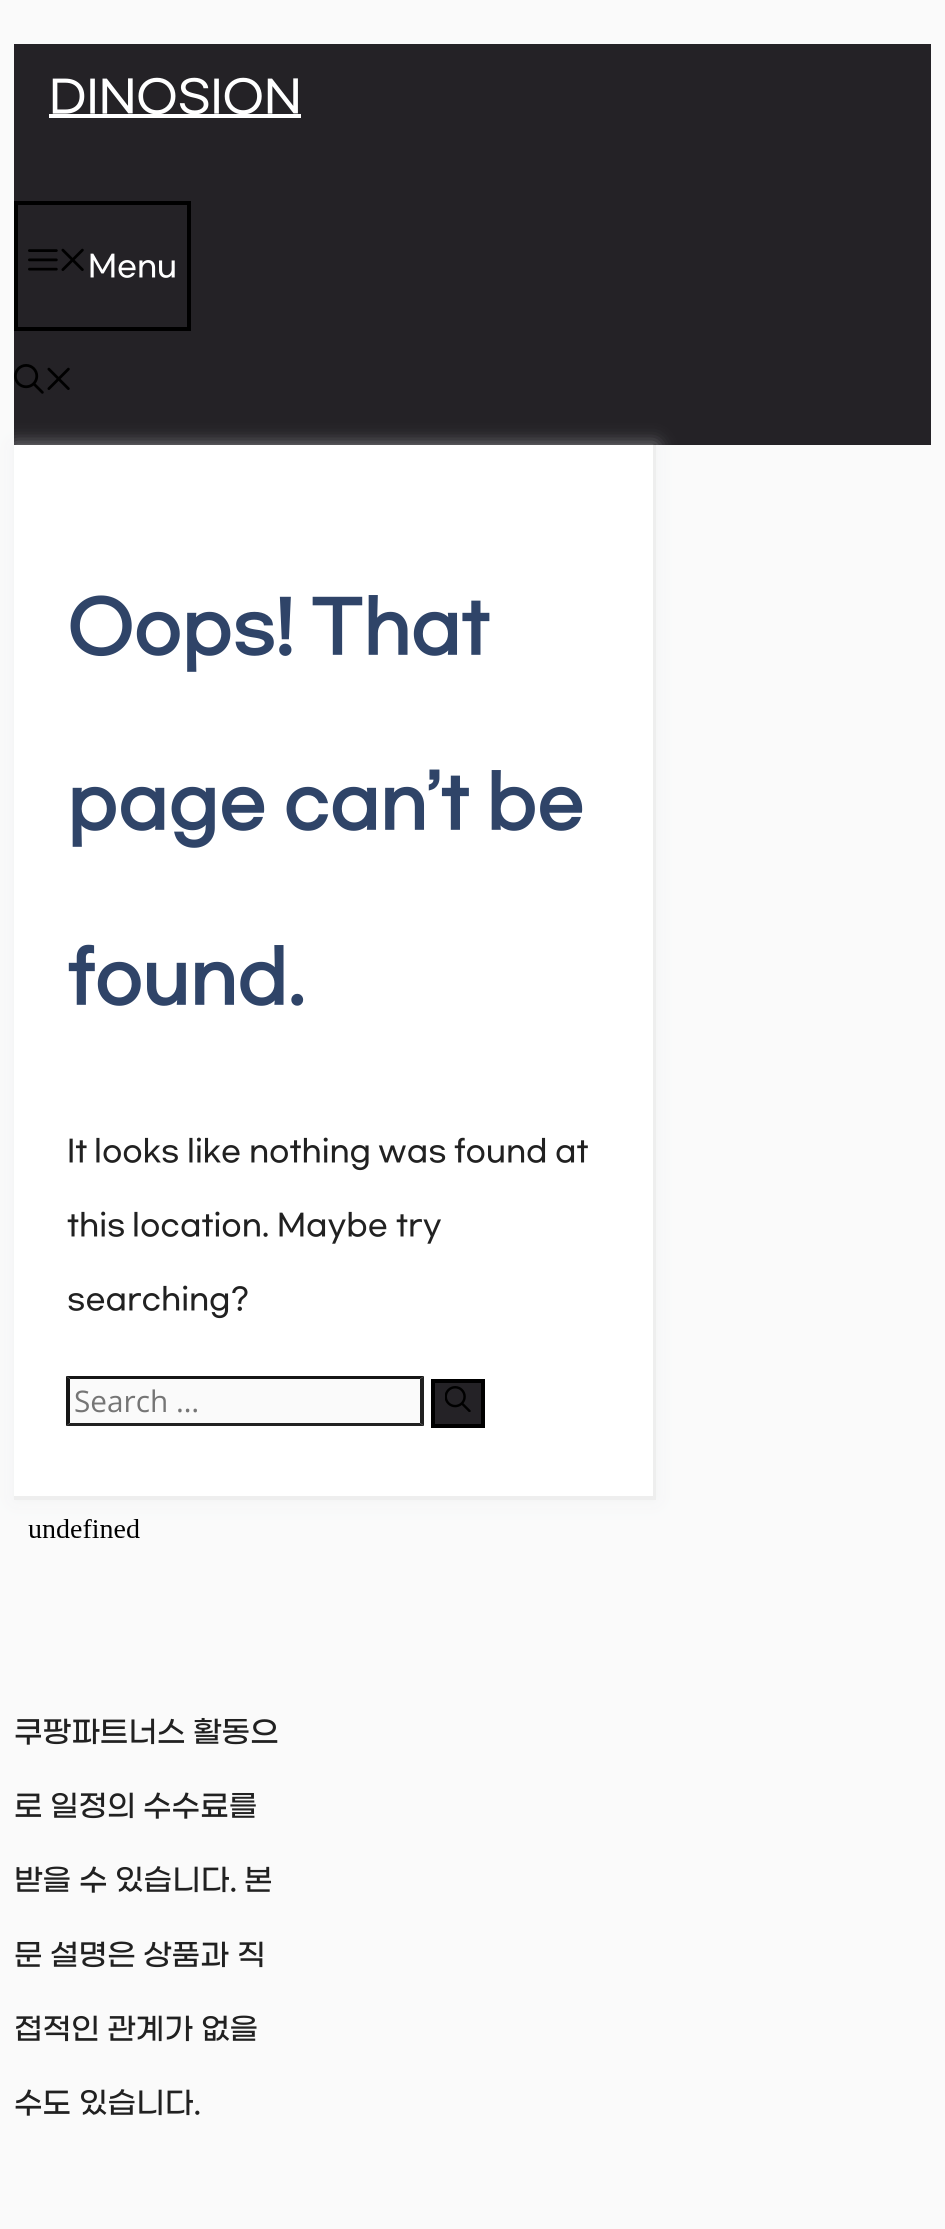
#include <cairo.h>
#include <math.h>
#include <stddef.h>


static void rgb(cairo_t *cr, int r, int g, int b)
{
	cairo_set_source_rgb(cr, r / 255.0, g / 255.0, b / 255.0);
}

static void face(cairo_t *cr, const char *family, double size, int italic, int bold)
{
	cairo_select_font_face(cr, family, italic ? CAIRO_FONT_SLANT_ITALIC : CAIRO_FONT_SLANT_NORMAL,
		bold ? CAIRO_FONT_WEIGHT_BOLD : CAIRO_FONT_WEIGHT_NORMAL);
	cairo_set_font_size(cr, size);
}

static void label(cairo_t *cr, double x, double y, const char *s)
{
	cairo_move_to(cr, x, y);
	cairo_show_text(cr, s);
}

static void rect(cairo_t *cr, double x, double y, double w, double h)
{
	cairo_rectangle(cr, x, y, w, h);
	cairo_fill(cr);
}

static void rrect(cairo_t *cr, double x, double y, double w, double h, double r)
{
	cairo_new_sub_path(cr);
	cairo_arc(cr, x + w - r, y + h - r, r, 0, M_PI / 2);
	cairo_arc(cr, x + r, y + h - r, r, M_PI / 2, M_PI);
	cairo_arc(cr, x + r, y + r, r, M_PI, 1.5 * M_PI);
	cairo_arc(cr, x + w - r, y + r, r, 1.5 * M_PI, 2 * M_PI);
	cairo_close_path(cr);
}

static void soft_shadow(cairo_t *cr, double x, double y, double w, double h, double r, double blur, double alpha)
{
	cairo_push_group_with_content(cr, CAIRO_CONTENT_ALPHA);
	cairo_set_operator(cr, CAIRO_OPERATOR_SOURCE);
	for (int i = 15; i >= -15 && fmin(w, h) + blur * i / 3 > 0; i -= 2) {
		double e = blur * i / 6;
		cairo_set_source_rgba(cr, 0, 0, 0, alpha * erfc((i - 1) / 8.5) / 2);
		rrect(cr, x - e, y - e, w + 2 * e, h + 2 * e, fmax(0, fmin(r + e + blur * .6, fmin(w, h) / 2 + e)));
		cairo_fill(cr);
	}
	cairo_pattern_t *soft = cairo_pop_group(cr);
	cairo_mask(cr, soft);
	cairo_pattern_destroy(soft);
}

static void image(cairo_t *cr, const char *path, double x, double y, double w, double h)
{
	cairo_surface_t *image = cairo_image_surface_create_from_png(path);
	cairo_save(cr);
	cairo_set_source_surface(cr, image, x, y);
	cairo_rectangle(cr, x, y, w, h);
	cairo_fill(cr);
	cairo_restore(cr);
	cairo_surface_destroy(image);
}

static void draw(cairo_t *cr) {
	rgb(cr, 250, 250, 250);
	cairo_paint(cr);
	rgb(cr, 36, 34, 38);
	rect(cr, 14, 44, 917, 401);
	rgb(cr, 255, 255, 255);
	rect(cr, 49, 114, 252, 4);
	face(cr, "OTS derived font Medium", 43.75, 0, 0);
	label(cr, 49, 110, "DINOSION");
	cairo_rectangle(cr, 16, 203, 173, 126);
	rgb(cr, 0, 0, 0);
	cairo_set_line_width(cr, 4);
	cairo_stroke(cr);
	image(cr, "image0.png", 28, 249, 30, 22);
	image(cr, "image1.png", 61, 248, 23, 23);
	face(cr, "OTS derived font Medium", 29.75, 0, 0);
	rgb(cr, 255, 255, 255);
	label(cr, 88, 275, "Menu");
	image(cr, "image2.png", 14, 364, 30, 30);
	image(cr, "image1.png", 47, 367, 23, 23);
	rgb(cr, 232, 234, 237);
	soft_shadow(cr, 14, 445, 642, 1055, 0, 9, 0.5);
	rgb(cr, 255, 255, 255);
	rect(cr, 14, 445, 642, 1055);
	cairo_set_source_rgba(cr, 0, 0, 0, 0.07);
	cairo_new_path(cr);
	cairo_move_to(cr, 656, 444);
	cairo_line_to(cr, 656, 1500);
	cairo_line_to(cr, 653, 1496);
	cairo_line_to(cr, 653, 444);
	cairo_close_path(cr);
	cairo_fill(cr);
	cairo_new_path(cr);
	cairo_move_to(cr, 656, 1500);
	cairo_line_to(cr, 14, 1500);
	cairo_line_to(cr, 14, 1496);
	cairo_line_to(cr, 653, 1496);
	cairo_close_path(cr);
	cairo_fill(cr);
	face(cr, "OTS derived font", 70, 0, 1);
	rgb(cr, 47, 68, 104);
	label(cr, 67, 649, "Oops!");
	label(cr, 310, 649, "That");
	label(cr, 67, 824, "page");
	label(cr, 283, 824, "can’t");
	label(cr, 486, 824, "be");
	label(cr, 67, 999, "found.");
	face(cr, "OTS derived font Medium", 29.75, 0, 0);
	rgb(cr, 33, 33, 33);
	label(cr, 67, 1160, "It");
	label(cr, 94, 1160, "looks");
	label(cr, 187, 1160, "like");
	label(cr, 249, 1160, "nothing");
	label(cr, 378, 1160, "was");
	label(cr, 454, 1160, "found");
	label(cr, 555, 1160, "at");
	label(cr, 67, 1234, "this");
	label(cr, 132, 1234, "location.");
	label(cr, 277, 1234, "Maybe");
	label(cr, 396, 1234, "try");
	label(cr, 67, 1308, "searching?");
	rgb(cr, 250, 250, 250);
	rect(cr, 67, 1376, 357, 50);
	rgb(cr, 22, 22, 22);
	cairo_new_path(cr);
	cairo_move_to(cr, 66, 1376);
	cairo_line_to(cr, 424, 1376);
	cairo_line_to(cr, 420, 1379);
	cairo_line_to(cr, 70, 1379);
	cairo_close_path(cr);
	cairo_fill(cr);
	rgb(cr, 33, 33, 33);
	cairo_new_path(cr);
	cairo_move_to(cr, 424, 1376);
	cairo_line_to(cr, 424, 1426);
	cairo_line_to(cr, 420, 1423);
	cairo_line_to(cr, 420, 1379);
	cairo_close_path(cr);
	cairo_fill(cr);
	cairo_new_path(cr);
	cairo_move_to(cr, 424, 1426);
	cairo_line_to(cr, 66, 1426);
	cairo_line_to(cr, 70, 1423);
	cairo_line_to(cr, 420, 1423);
	cairo_close_path(cr);
	cairo_fill(cr);
	rgb(cr, 22, 22, 22);
	cairo_new_path(cr);
	cairo_move_to(cr, 66, 1426);
	cairo_line_to(cr, 66, 1376);
	cairo_line_to(cr, 70, 1379);
	cairo_line_to(cr, 70, 1423);
	cairo_close_path(cr);
	cairo_fill(cr);
	face(cr, "Open Sans", 29.75, 0, 0);
	rgb(cr, 117, 117, 117);
	label(cr, 74, 1412, "Search …");
	rgb(cr, 36, 34, 38);
	cairo_rectangle(cr, 433, 1381, 50, 45);
	cairo_fill_preserve(cr);
	rgb(cr, 0, 0, 0);
	cairo_stroke(cr);
	image(cr, "image3.png", 445, 1386, 26, 26);
	image(cr, "image4.png", 28, 1519, 112, 19);
	face(cr, "OTS derived font Medium", 29.75, 0, 0);
	rgb(cr, 33, 33, 33);
	label(cr, 14, 1741, "쿠팡파트너스");
	label(cr, 193, 1741, "활동으");
	label(cr, 14, 1815, "로");
	label(cr, 50, 1815, "일정의");
	label(cr, 143, 1815, "수수료를");
	label(cr, 14, 1889, "받을");
	label(cr, 79, 1889, "수");
	label(cr, 115, 1889, "있습니다.");
	label(cr, 244, 1889, "본");
	label(cr, 14, 1964, "문");
	label(cr, 50, 1964, "설명은");
	label(cr, 143, 1964, "상품과");
	label(cr, 237, 1964, "직");
	label(cr, 14, 2038, "접적인");
	label(cr, 107, 2038, "관계가");
	label(cr, 201, 2038, "없을");
	label(cr, 14, 2112, "수도");
	label(cr, 79, 2112, "있습니다.");
}

int main(void) {
	cairo_surface_t *surface = cairo_image_surface_create(CAIRO_FORMAT_RGB24, 945, 2229);
	cairo_t *cr = cairo_create(surface);
	cairo_font_options_t *options = cairo_font_options_create();
	cairo_font_options_set_hint_metrics(options, CAIRO_HINT_METRICS_OFF);
	cairo_font_options_set_hint_style(options, CAIRO_HINT_STYLE_NONE);
	cairo_set_font_options(cr, options);
	cairo_set_miter_limit(cr, 4);
	draw(cr);
	cairo_surface_write_to_png(surface, "render.png");
	cairo_font_options_destroy(options);
	cairo_destroy(cr);
	cairo_surface_destroy(surface);
	return 0;
}
